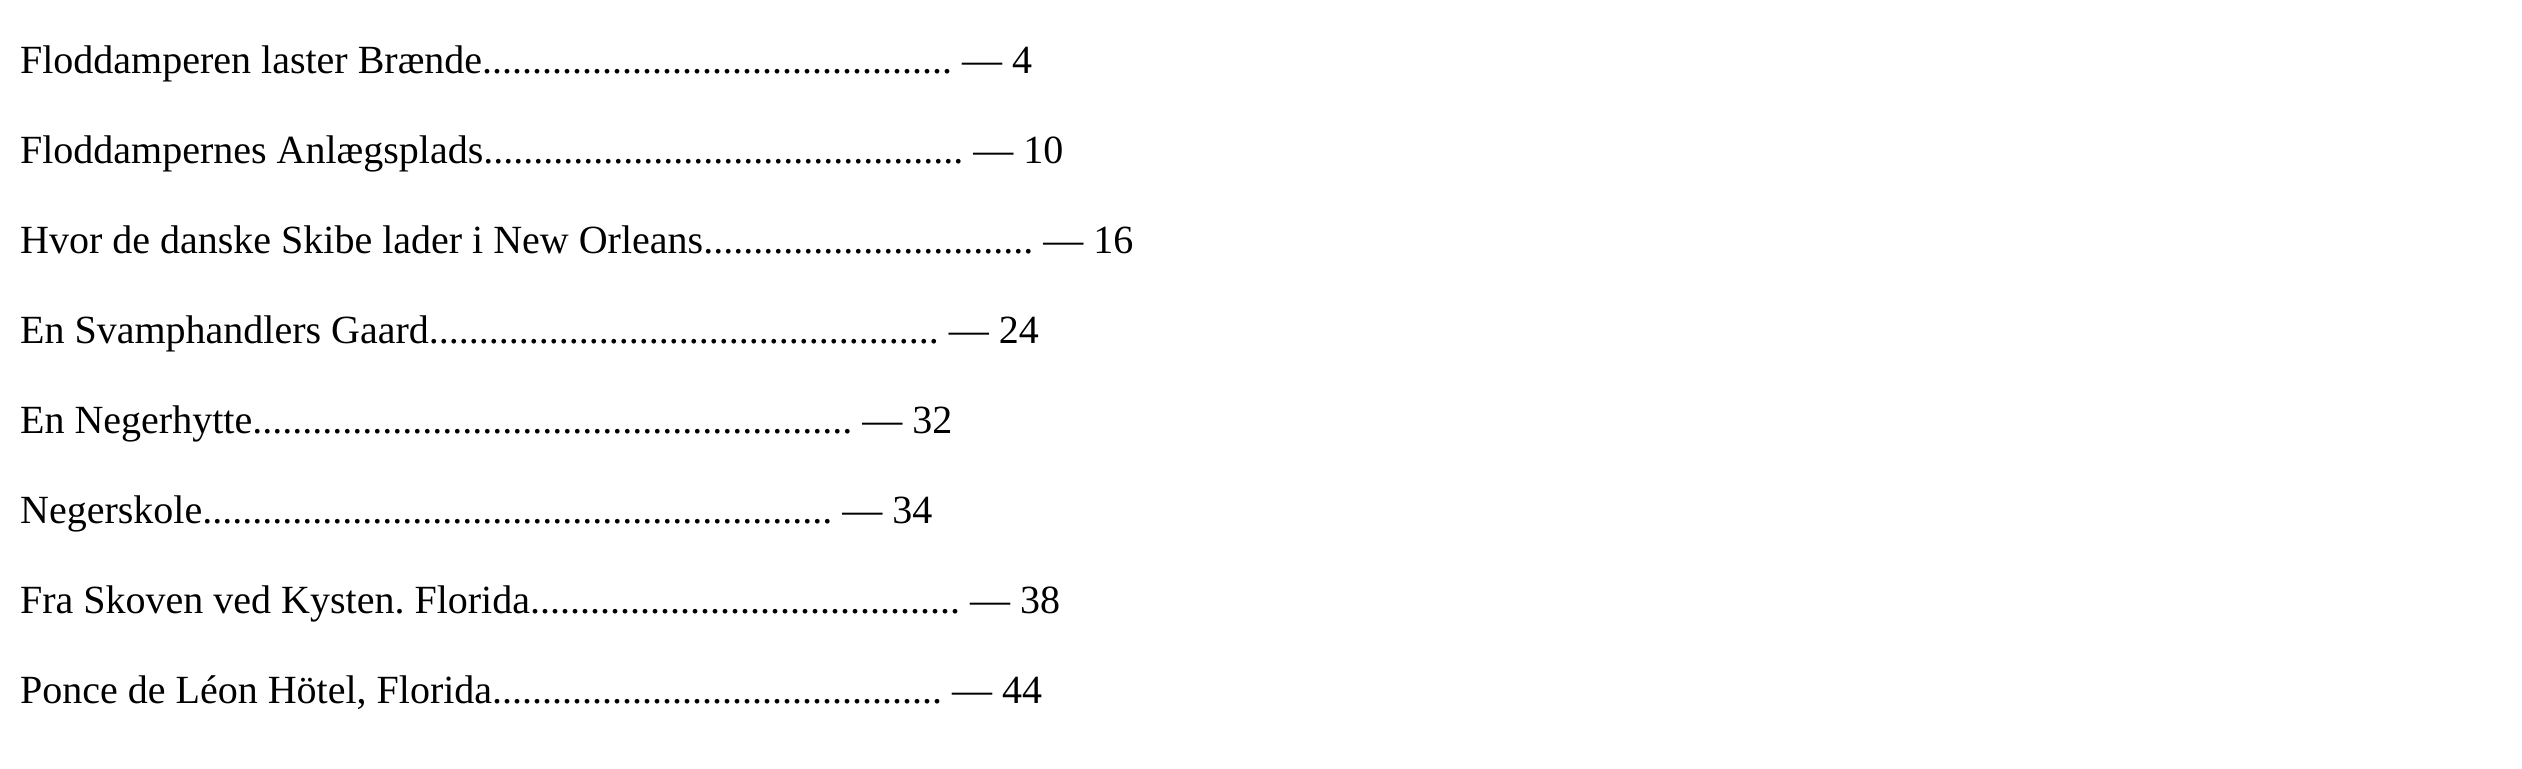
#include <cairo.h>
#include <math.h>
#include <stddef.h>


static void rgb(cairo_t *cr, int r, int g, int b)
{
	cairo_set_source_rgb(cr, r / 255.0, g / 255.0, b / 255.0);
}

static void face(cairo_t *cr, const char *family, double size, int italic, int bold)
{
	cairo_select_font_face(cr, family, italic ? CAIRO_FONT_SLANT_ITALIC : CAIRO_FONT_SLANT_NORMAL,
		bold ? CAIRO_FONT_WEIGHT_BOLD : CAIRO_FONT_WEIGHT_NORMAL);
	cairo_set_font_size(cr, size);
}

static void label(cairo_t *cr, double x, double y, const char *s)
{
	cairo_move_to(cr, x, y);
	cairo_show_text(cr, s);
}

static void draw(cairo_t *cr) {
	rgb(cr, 255, 255, 255);
	cairo_paint(cr);
	face(cr, "Liberation Serif", 40, 0, 0);
	rgb(cr, 0, 0, 0);
	label(cr, 20, 73, "Floddamperen laster Brænde............................................... — 4");
	label(cr, 20, 163, "Floddampernes Anlægsplads................................................ — 10");
	label(cr, 20, 253, "Hvor de danske Skibe lader i New Orleans................................. — 16");
	label(cr, 20, 343, "En Svamphandlers Gaard................................................... — 24");
	label(cr, 20, 433, "En Negerhytte............................................................ — 32");
	label(cr, 20, 523, "Negerskole............................................................... — 34");
	label(cr, 20, 613, "Fra Skoven ved Kysten. Florida........................................... — 38");
	label(cr, 20, 703, "Ponce de Léon Hötel, Florida............................................. — 44");
}

int main(void) {
	cairo_surface_t *surface = cairo_image_surface_create(CAIRO_FORMAT_RGB24, 2522, 769);
	cairo_t *cr = cairo_create(surface);
	cairo_font_options_t *options = cairo_font_options_create();
	cairo_font_options_set_hint_metrics(options, CAIRO_HINT_METRICS_OFF);
	cairo_font_options_set_hint_style(options, CAIRO_HINT_STYLE_NONE);
	cairo_set_font_options(cr, options);
	cairo_set_miter_limit(cr, 4);
	draw(cr);
	cairo_surface_write_to_png(surface, "render.png");
	cairo_font_options_destroy(options);
	cairo_destroy(cr);
	cairo_surface_destroy(surface);
	return 0;
}
